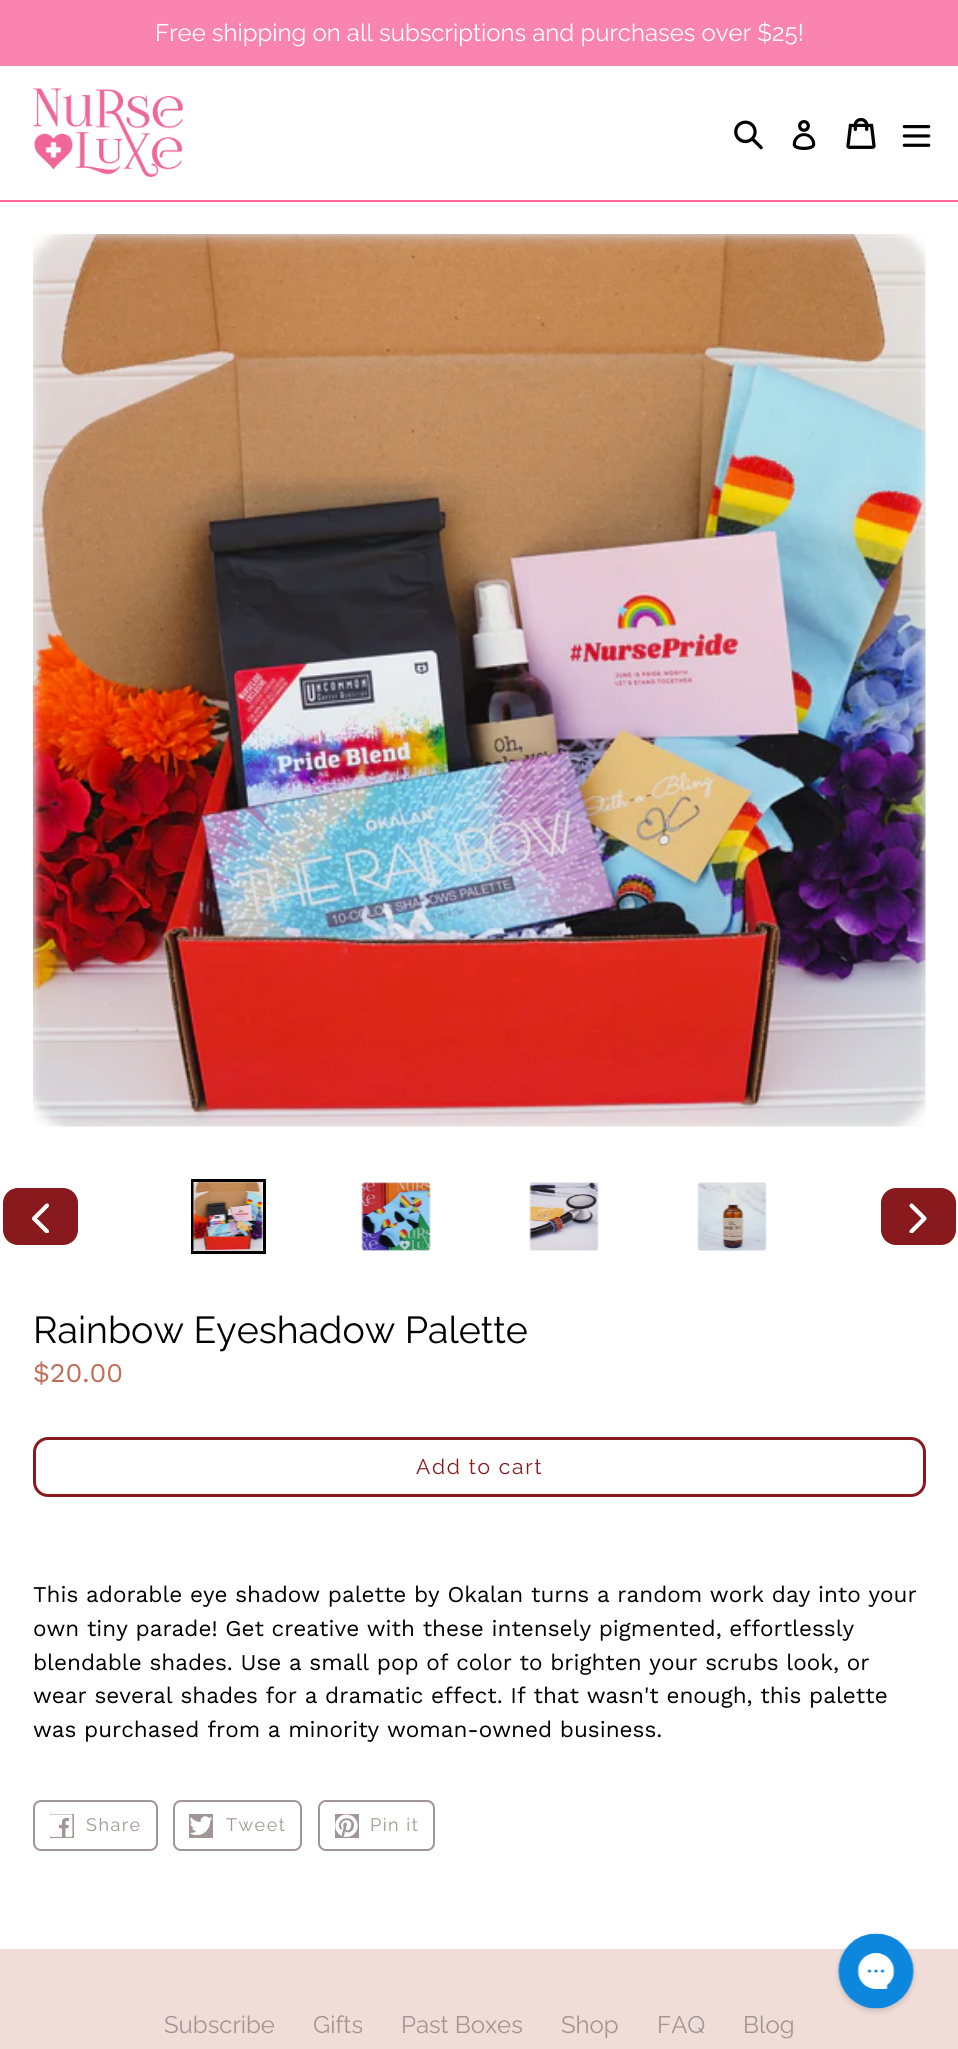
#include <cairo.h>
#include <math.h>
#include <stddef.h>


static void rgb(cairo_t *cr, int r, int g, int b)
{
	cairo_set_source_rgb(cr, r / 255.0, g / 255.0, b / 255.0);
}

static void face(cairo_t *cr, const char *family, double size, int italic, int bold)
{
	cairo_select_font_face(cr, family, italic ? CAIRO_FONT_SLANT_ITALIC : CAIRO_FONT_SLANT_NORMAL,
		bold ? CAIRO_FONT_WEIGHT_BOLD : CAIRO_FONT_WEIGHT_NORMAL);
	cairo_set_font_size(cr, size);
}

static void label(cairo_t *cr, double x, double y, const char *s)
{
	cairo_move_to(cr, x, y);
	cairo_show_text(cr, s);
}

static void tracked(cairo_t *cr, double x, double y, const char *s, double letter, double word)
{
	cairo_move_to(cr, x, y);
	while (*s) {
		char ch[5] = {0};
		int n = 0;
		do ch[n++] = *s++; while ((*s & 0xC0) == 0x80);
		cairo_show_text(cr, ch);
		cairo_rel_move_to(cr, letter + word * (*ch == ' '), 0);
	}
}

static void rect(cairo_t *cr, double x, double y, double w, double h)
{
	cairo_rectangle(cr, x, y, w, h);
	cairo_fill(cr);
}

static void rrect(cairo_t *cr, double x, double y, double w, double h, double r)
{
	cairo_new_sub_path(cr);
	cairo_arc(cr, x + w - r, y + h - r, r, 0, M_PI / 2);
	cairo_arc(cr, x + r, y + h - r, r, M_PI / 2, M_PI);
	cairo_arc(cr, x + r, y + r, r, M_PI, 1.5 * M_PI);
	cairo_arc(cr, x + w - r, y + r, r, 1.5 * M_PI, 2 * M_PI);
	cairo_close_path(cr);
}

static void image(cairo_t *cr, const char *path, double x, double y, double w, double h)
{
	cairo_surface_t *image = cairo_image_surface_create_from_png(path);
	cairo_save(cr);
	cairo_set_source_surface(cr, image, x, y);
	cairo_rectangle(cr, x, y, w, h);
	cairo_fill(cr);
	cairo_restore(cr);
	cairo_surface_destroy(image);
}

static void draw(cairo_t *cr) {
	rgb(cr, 255, 255, 255);
	cairo_paint(cr);
	rgb(cr, 249, 132, 176);
	rect(cr, 0, 0, 958, 66);
	face(cr, "Raleway", 24, 0, 0);
	rgb(cr, 255, 255, 255);
	label(cr, 155, 41, "Free shipping on all subscriptions and purchases over $25!");
	rgb(cr, 255, 102, 153);
	rect(cr, 0, 200, 958, 2);
	image(cr, "image0.png", 33, 88, 150, 89);
	image(cr, "image1.png", 734, 120, 29, 30);
	image(cr, "image2.png", 792, 120, 24, 30);
	image(cr, "image3.png", 846, 117, 30, 32);
	image(cr, "image4.png", 902, 125, 29, 22);
	image(cr, "image5.png", 33, 234, 893, 893);
	rgb(cr, 136, 26, 29);
	rrect(cr, 3, 1188, 75, 57, 15);
	cairo_fill(cr);
	image(cr, "image6.png", 32, 1203, 17, 30);
	cairo_rectangle(cr, 192.5, 1180.5, 72, 72);
	rgb(cr, 0, 0, 0);
	cairo_set_line_width(cr, 3);
	cairo_stroke(cr);
	image(cr, "image7.png", 193, 1182, 70, 69);
	image(cr, "image8.png", 361, 1182, 70, 69);
	image(cr, "image9.png", 529, 1182, 70, 69);
	image(cr, "image10.png", 697, 1182, 70, 69);
	rgb(cr, 136, 26, 29);
	rrect(cr, 881, 1188, 75, 57, 15);
	cairo_fill(cr);
	image(cr, "image11.png", 909, 1203, 18, 30);
	face(cr, "Raleway", 37.5, 0, 0);
	rgb(cr, 0, 0, 0);
	label(cr, 33, 1343, "Rainbow Eyeshadow Palette");
	face(cr, "Work Sans", 27, 0, 0);
	rgb(cr, 193, 112, 88);
	label(cr, 33, 1382, "$20.00");
	rrect(cr, 34.5, 1438.5, 890, 57, 13.5);
	rgb(cr, 136, 26, 29);
	cairo_stroke(cr);
	face(cr, "Raleway", 21, 0, 0);
	tracked(cr, 416, 1474, "Add to cart", 1.75, 0);
	face(cr, "Work Sans", 22.5, 0, 0);
	rgb(cr, 0, 0, 0);
	label(cr, 33, 1602, "This adorable eye shadow palette by Okalan turns a random work day into your");
	label(cr, 33, 1636, "own tiny parade! Get creative with these intensely pigmented, effortlessly");
	label(cr, 33, 1670, "blendable shades. Use a small pop of color to brighten your scrubs look, or");
	label(cr, 33, 1703, "wear several shades for a dramatic effect. If that wasn't enough, this palette");
	label(cr, 33, 1737, "was purchased from a minority woman-owned business.");
	rrect(cr, 34, 1801, 123, 49, 7);
	rgb(cr, 162, 149, 149);
	cairo_set_line_width(cr, 2);
	cairo_stroke(cr);
	rect(cr, 50, 1814, 24, 24);
	image(cr, "image12.png", 50, 1814, 23, 23);
	face(cr, "Raleway", 18, 0, 0);
	tracked(cr, 86, 1831, "Share", 1.5, 0);
	rrect(cr, 174, 1801, 127, 49, 7);
	cairo_stroke(cr);
	rect(cr, 189, 1814, 24, 24);
	image(cr, "image13.png", 189, 1816, 24, 20);
	tracked(cr, 226, 1831, "Tweet", 1.5, 0);
	rrect(cr, 319, 1801, 115, 49, 7);
	cairo_stroke(cr);
	rect(cr, 335, 1814, 24, 24);
	image(cr, "image14.png", 335, 1814, 23, 23);
	tracked(cr, 370, 1831, "Pin it", 1.5, 0);
	rgb(cr, 240, 221, 215);
	rect(cr, 0, 1949, 958, 100);
	face(cr, "Raleway", 24, 0, 0);
	rgb(cr, 162, 149, 149);
	label(cr, 164, 2033, "Subscribe");
	label(cr, 313, 2033, "Gifts");
	label(cr, 401, 2033, "Past Boxes");
	label(cr, 561, 2033, "Shop");
	label(cr, 657, 2033, "FAQ");
	label(cr, 743, 2033, "Blog");
	image(cr, "image15.png", 835, 1933, 82, 82);
}

int main(void) {
	cairo_surface_t *surface = cairo_image_surface_create(CAIRO_FORMAT_RGB24, 958, 2049);
	cairo_t *cr = cairo_create(surface);
	cairo_font_options_t *options = cairo_font_options_create();
	cairo_font_options_set_hint_metrics(options, CAIRO_HINT_METRICS_OFF);
	cairo_font_options_set_hint_style(options, CAIRO_HINT_STYLE_NONE);
	cairo_set_font_options(cr, options);
	cairo_set_miter_limit(cr, 4);
	draw(cr);
	cairo_surface_write_to_png(surface, "render.png");
	cairo_font_options_destroy(options);
	cairo_destroy(cr);
	cairo_surface_destroy(surface);
	return 0;
}
